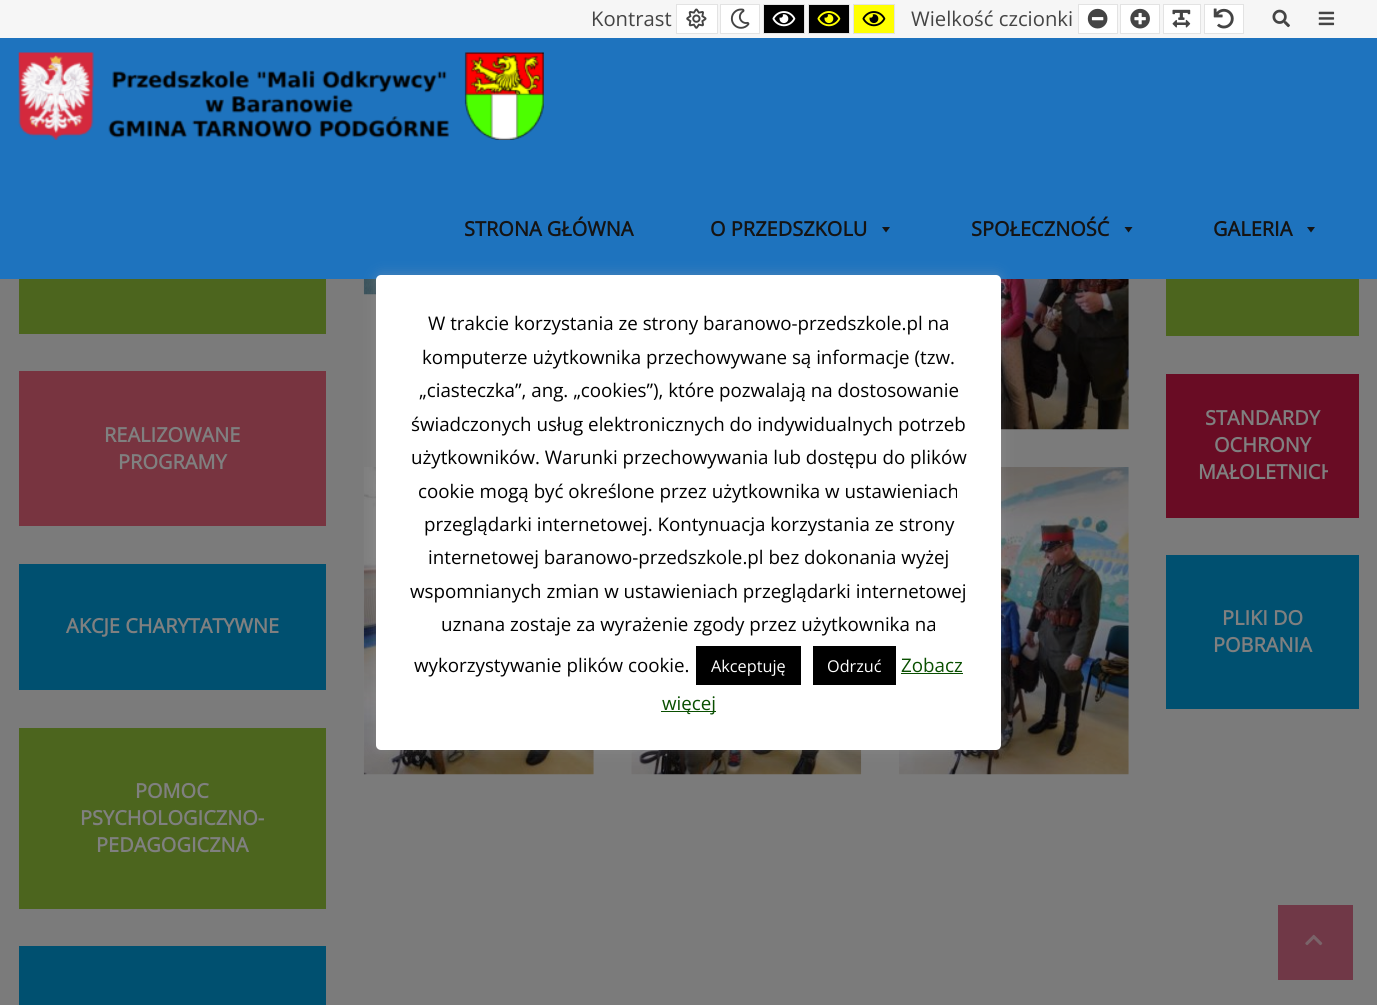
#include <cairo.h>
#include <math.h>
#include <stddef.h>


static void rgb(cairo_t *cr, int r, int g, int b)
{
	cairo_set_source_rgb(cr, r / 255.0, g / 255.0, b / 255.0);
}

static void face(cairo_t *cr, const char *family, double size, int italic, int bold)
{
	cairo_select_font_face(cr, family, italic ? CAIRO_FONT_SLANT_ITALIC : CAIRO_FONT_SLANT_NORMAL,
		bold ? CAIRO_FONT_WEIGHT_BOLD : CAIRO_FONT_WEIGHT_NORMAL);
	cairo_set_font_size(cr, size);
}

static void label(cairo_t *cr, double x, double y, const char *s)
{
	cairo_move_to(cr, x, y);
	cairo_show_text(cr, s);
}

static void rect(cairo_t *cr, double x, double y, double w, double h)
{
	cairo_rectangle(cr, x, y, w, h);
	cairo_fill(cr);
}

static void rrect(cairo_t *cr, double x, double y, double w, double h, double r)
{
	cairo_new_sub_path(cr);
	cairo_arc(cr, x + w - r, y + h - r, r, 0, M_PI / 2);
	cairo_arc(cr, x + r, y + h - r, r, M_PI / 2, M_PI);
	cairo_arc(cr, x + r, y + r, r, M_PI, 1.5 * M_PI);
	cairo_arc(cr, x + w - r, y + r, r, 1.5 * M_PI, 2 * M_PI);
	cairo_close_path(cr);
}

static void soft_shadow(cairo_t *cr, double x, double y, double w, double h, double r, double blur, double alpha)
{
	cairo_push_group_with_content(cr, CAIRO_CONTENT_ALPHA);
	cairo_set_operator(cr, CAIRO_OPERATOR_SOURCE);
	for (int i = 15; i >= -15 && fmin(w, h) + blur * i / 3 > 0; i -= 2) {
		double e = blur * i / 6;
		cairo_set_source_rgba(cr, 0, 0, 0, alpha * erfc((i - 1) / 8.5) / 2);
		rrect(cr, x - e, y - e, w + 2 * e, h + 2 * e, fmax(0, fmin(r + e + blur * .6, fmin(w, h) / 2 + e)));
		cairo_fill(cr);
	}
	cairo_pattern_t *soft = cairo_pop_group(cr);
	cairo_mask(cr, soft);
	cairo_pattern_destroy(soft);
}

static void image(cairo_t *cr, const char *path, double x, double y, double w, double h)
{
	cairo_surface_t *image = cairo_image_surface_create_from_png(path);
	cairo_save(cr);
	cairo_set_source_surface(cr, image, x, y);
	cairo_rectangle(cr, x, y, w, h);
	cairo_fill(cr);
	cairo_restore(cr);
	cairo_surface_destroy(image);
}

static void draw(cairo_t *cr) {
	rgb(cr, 123, 123, 123);
	cairo_paint(cr);
	rgb(cr, 246, 246, 246);
	rect(cr, 0, 0, 1377, 38);
	face(cr, "Open Sans", 20.25, 0, 0);
	rgb(cr, 68, 68, 68);
	label(cr, 591, 26, "Kontrast");
	rgb(cr, 255, 255, 255);
	cairo_rectangle(cr, 676.5, 4.5, 41, 29);
	cairo_fill_preserve(cr);
	rgb(cr, 227, 227, 227);
	cairo_set_line_width(cr, 1);
	cairo_stroke(cr);
	image(cr, "image0.png", 686, 8, 21, 21);
	rgb(cr, 255, 255, 255);
	cairo_rectangle(cr, 720.5, 4.5, 39, 29);
	cairo_fill_preserve(cr);
	rgb(cr, 227, 227, 227);
	cairo_stroke(cr);
	image(cr, "image1.png", 730, 8, 20, 21);
	rgb(cr, 0, 0, 0);
	cairo_rectangle(cr, 763.5, 4.5, 41, 29);
	cairo_fill_preserve(cr);
	rgb(cr, 227, 227, 227);
	cairo_stroke(cr);
	image(cr, "image2.png", 772, 11, 24, 16);
	rgb(cr, 0, 0, 0);
	cairo_rectangle(cr, 808.5, 4.5, 41, 29);
	cairo_fill_preserve(cr);
	rgb(cr, 227, 227, 227);
	cairo_stroke(cr);
	image(cr, "image3.png", 817, 11, 24, 16);
	rgb(cr, 255, 255, 0);
	cairo_rectangle(cr, 853.5, 4.5, 41, 29);
	cairo_fill_preserve(cr);
	rgb(cr, 227, 227, 227);
	cairo_stroke(cr);
	image(cr, "image4.png", 862, 11, 24, 16);
	rgb(cr, 68, 68, 68);
	label(cr, 911, 26, "Wielkość czcionki");
	rgb(cr, 255, 255, 255);
	cairo_rectangle(cr, 1078.5, 4.5, 39, 29);
	cairo_fill_preserve(cr);
	rgb(cr, 227, 227, 227);
	cairo_stroke(cr);
	image(cr, "image5.png", 1087, 8, 21, 21);
	rgb(cr, 255, 255, 255);
	cairo_rectangle(cr, 1120.5, 4.5, 39, 29);
	cairo_fill_preserve(cr);
	rgb(cr, 227, 227, 227);
	cairo_stroke(cr);
	image(cr, "image6.png", 1130, 8, 20, 21);
	rgb(cr, 255, 255, 255);
	cairo_rectangle(cr, 1163.5, 4.5, 37, 29);
	cairo_fill_preserve(cr);
	rgb(cr, 227, 227, 227);
	cairo_stroke(cr);
	image(cr, "image7.png", 1172, 9, 19, 19);
	rgb(cr, 255, 255, 255);
	cairo_rectangle(cr, 1204.5, 4.5, 39, 29);
	cairo_fill_preserve(cr);
	rgb(cr, 227, 227, 227);
	cairo_stroke(cr);
	image(cr, "image8.png", 1213, 8, 21, 21);
	image(cr, "image9.png", 1272, 9, 18, 19);
	image(cr, "image10.png", 1318, 11, 17, 15);
	rgb(cr, 30, 115, 190);
	rect(cr, 0, 38, 1377, 241);
	image(cr, "image11.png", 18, 52, 526, 88);
	face(cr, "Open Sans", 20, 0, 1);
	rgb(cr, 21, 20, 20);
	label(cr, 464, 236, "STRONA GŁÓWNA");
	label(cr, 710, 236, "O PRZEDSZKOLU");
	cairo_new_path(cr);
	cairo_move_to(cr, 890, 227);
	cairo_line_to(cr, 886, 232.5);
	cairo_line_to(cr, 882, 227);
	cairo_close_path(cr);
	cairo_fill(cr);
	label(cr, 971, 236, "SPOŁECZNOŚĆ");
	cairo_new_path(cr);
	cairo_move_to(cr, 1132.5, 227);
	cairo_line_to(cr, 1128.5, 232.5);
	cairo_line_to(cr, 1124.5, 227);
	cairo_close_path(cr);
	cairo_fill(cr);
	label(cr, 1213, 236, "GALERIA");
	cairo_new_path(cr);
	cairo_move_to(cr, 1315, 227);
	cairo_line_to(cr, 1311, 232.5);
	cairo_line_to(cr, 1307, 227);
	cairo_close_path(cr);
	cairo_fill(cr);
	rgb(cr, 76, 101, 30);
	rect(cr, 19, 279, 307, 55);
	rgb(cr, 120, 52, 64);
	rect(cr, 19, 371, 307, 155);
	rgb(cr, 128, 128, 128);
	label(cr, 104, 442, "REALIZOWANE");
	label(cr, 118, 469, "PROGRAMY");
	rgb(cr, 0, 80, 112);
	rect(cr, 19, 564, 307, 126);
	rgb(cr, 128, 128, 128);
	label(cr, 66, 633, "AKCJE CHARYTATYWNE");
	rgb(cr, 76, 101, 30);
	rect(cr, 19, 728, 307, 181);
	rgb(cr, 128, 128, 128);
	label(cr, 135, 798, "POMOC");
	label(cr, 80, 825, "PSYCHOLOGICZNO-");
	label(cr, 96, 852, "PEDAGOGICZNA");
	rgb(cr, 0, 80, 112);
	rect(cr, 19, 946, 307, 59);
	image(cr, "image12.png", 363, 279, 14, 16);
	image(cr, "image13.png", 1000, 279, 129, 151);
	image(cr, "image14.png", 363, 467, 231, 308);
	image(cr, "image15.png", 631, 750, 231, 25);
	image(cr, "image16.png", 898, 467, 231, 308);
	rgb(cr, 76, 101, 30);
	rect(cr, 1166, 279, 193, 57);
	rgb(cr, 105, 12, 36);
	rect(cr, 1166, 374, 193, 144);
	rgb(cr, 128, 128, 128);
	label(cr, 1205, 425, "STANDARDY");
	label(cr, 1214, 452, "OCHRONY");
	cairo_save(cr);
	cairo_rectangle(cr, 1198, 405, 130, 81);
	cairo_clip(cr);
	label(cr, 1198, 479, "MAŁOLETNICH");
	cairo_restore(cr);
	rgb(cr, 0, 80, 112);
	rect(cr, 1166, 555, 193, 154);
	rgb(cr, 128, 128, 128);
	label(cr, 1222, 625, "PLIKI DO");
	label(cr, 1213, 652, "POBRANIA");
	rgb(cr, 112, 56, 71);
	rect(cr, 1278, 905, 75, 75);
	image(cr, "image17.png", 1305, 934, 18, 12);
	rgb(cr, 172, 171, 171);
	soft_shadow(cr, 376, 274, 625, 475, 5, 6, 0.3);
	rgb(cr, 255, 255, 255);
	rrect(cr, 376, 275, 625, 475, 5);
	cairo_fill(cr);
	face(cr, "Open Sans", 18.75, 0, 0);
	rgb(cr, 0, 0, 0);
	label(cr, 428, 330, "W trakcie korzystania ze strony baranowo-przedszkole.pl na");
	label(cr, 422, 364, "komputerze użytkownika przechowywane są informacje (tzw.");
	label(cr, 419, 397, "„ciasteczka”, ang. „cookies”), które pozwalają na dostosowanie");
	label(cr, 411, 431, "świadczonych usług elektronicznych do indywidualnych potrzeb");
	label(cr, 411, 464, "użytkowników. Warunki przechowywania lub dostępu do plików");
	label(cr, 418, 498, "cookie mogą być określone przez użytkownika w ustawieniach");
	label(cr, 424, 531, "przeglądarki internetowej. Kontynuacja korzystania ze strony");
	label(cr, 428, 564, "internetowej baranowo-przedszkole.pl bez dokonania wyżej");
	label(cr, 410, 598, "wspomnianych zmian w ustawieniach przeglądarki internetowej");
	label(cr, 441, 631, "uznana zostaje za wyrażenie zgody przez użytkownika na");
	label(cr, 414, 672, "wykorzystywanie plików cookie.");
	rect(cr, 696, 646, 105, 39);
	face(cr, "Open Sans", 16.25, 0, 0);
	rgb(cr, 255, 255, 255);
	label(cr, 711, 672, "Akceptuję");
	rgb(cr, 0, 0, 0);
	rect(cr, 813, 646, 83, 39);
	rgb(cr, 255, 255, 255);
	label(cr, 827, 672, "Odrzuć");
	face(cr, "Open Sans", 18.75, 0, 0);
	rgb(cr, 9, 79, 0);
	label(cr, 901, 672, "Zobacz");
	rect(cr, 901, 673, 62, 1);
	rect(cr, 661, 711, 55, 1);
	label(cr, 662, 710, "więcej");
}

int main(void) {
	cairo_surface_t *surface = cairo_image_surface_create(CAIRO_FORMAT_RGB24, 1377, 1005);
	cairo_t *cr = cairo_create(surface);
	cairo_font_options_t *options = cairo_font_options_create();
	cairo_font_options_set_hint_metrics(options, CAIRO_HINT_METRICS_OFF);
	cairo_font_options_set_hint_style(options, CAIRO_HINT_STYLE_NONE);
	cairo_set_font_options(cr, options);
	cairo_set_miter_limit(cr, 4);
	draw(cr);
	cairo_surface_write_to_png(surface, "render.png");
	cairo_font_options_destroy(options);
	cairo_destroy(cr);
	cairo_surface_destroy(surface);
	return 0;
}
